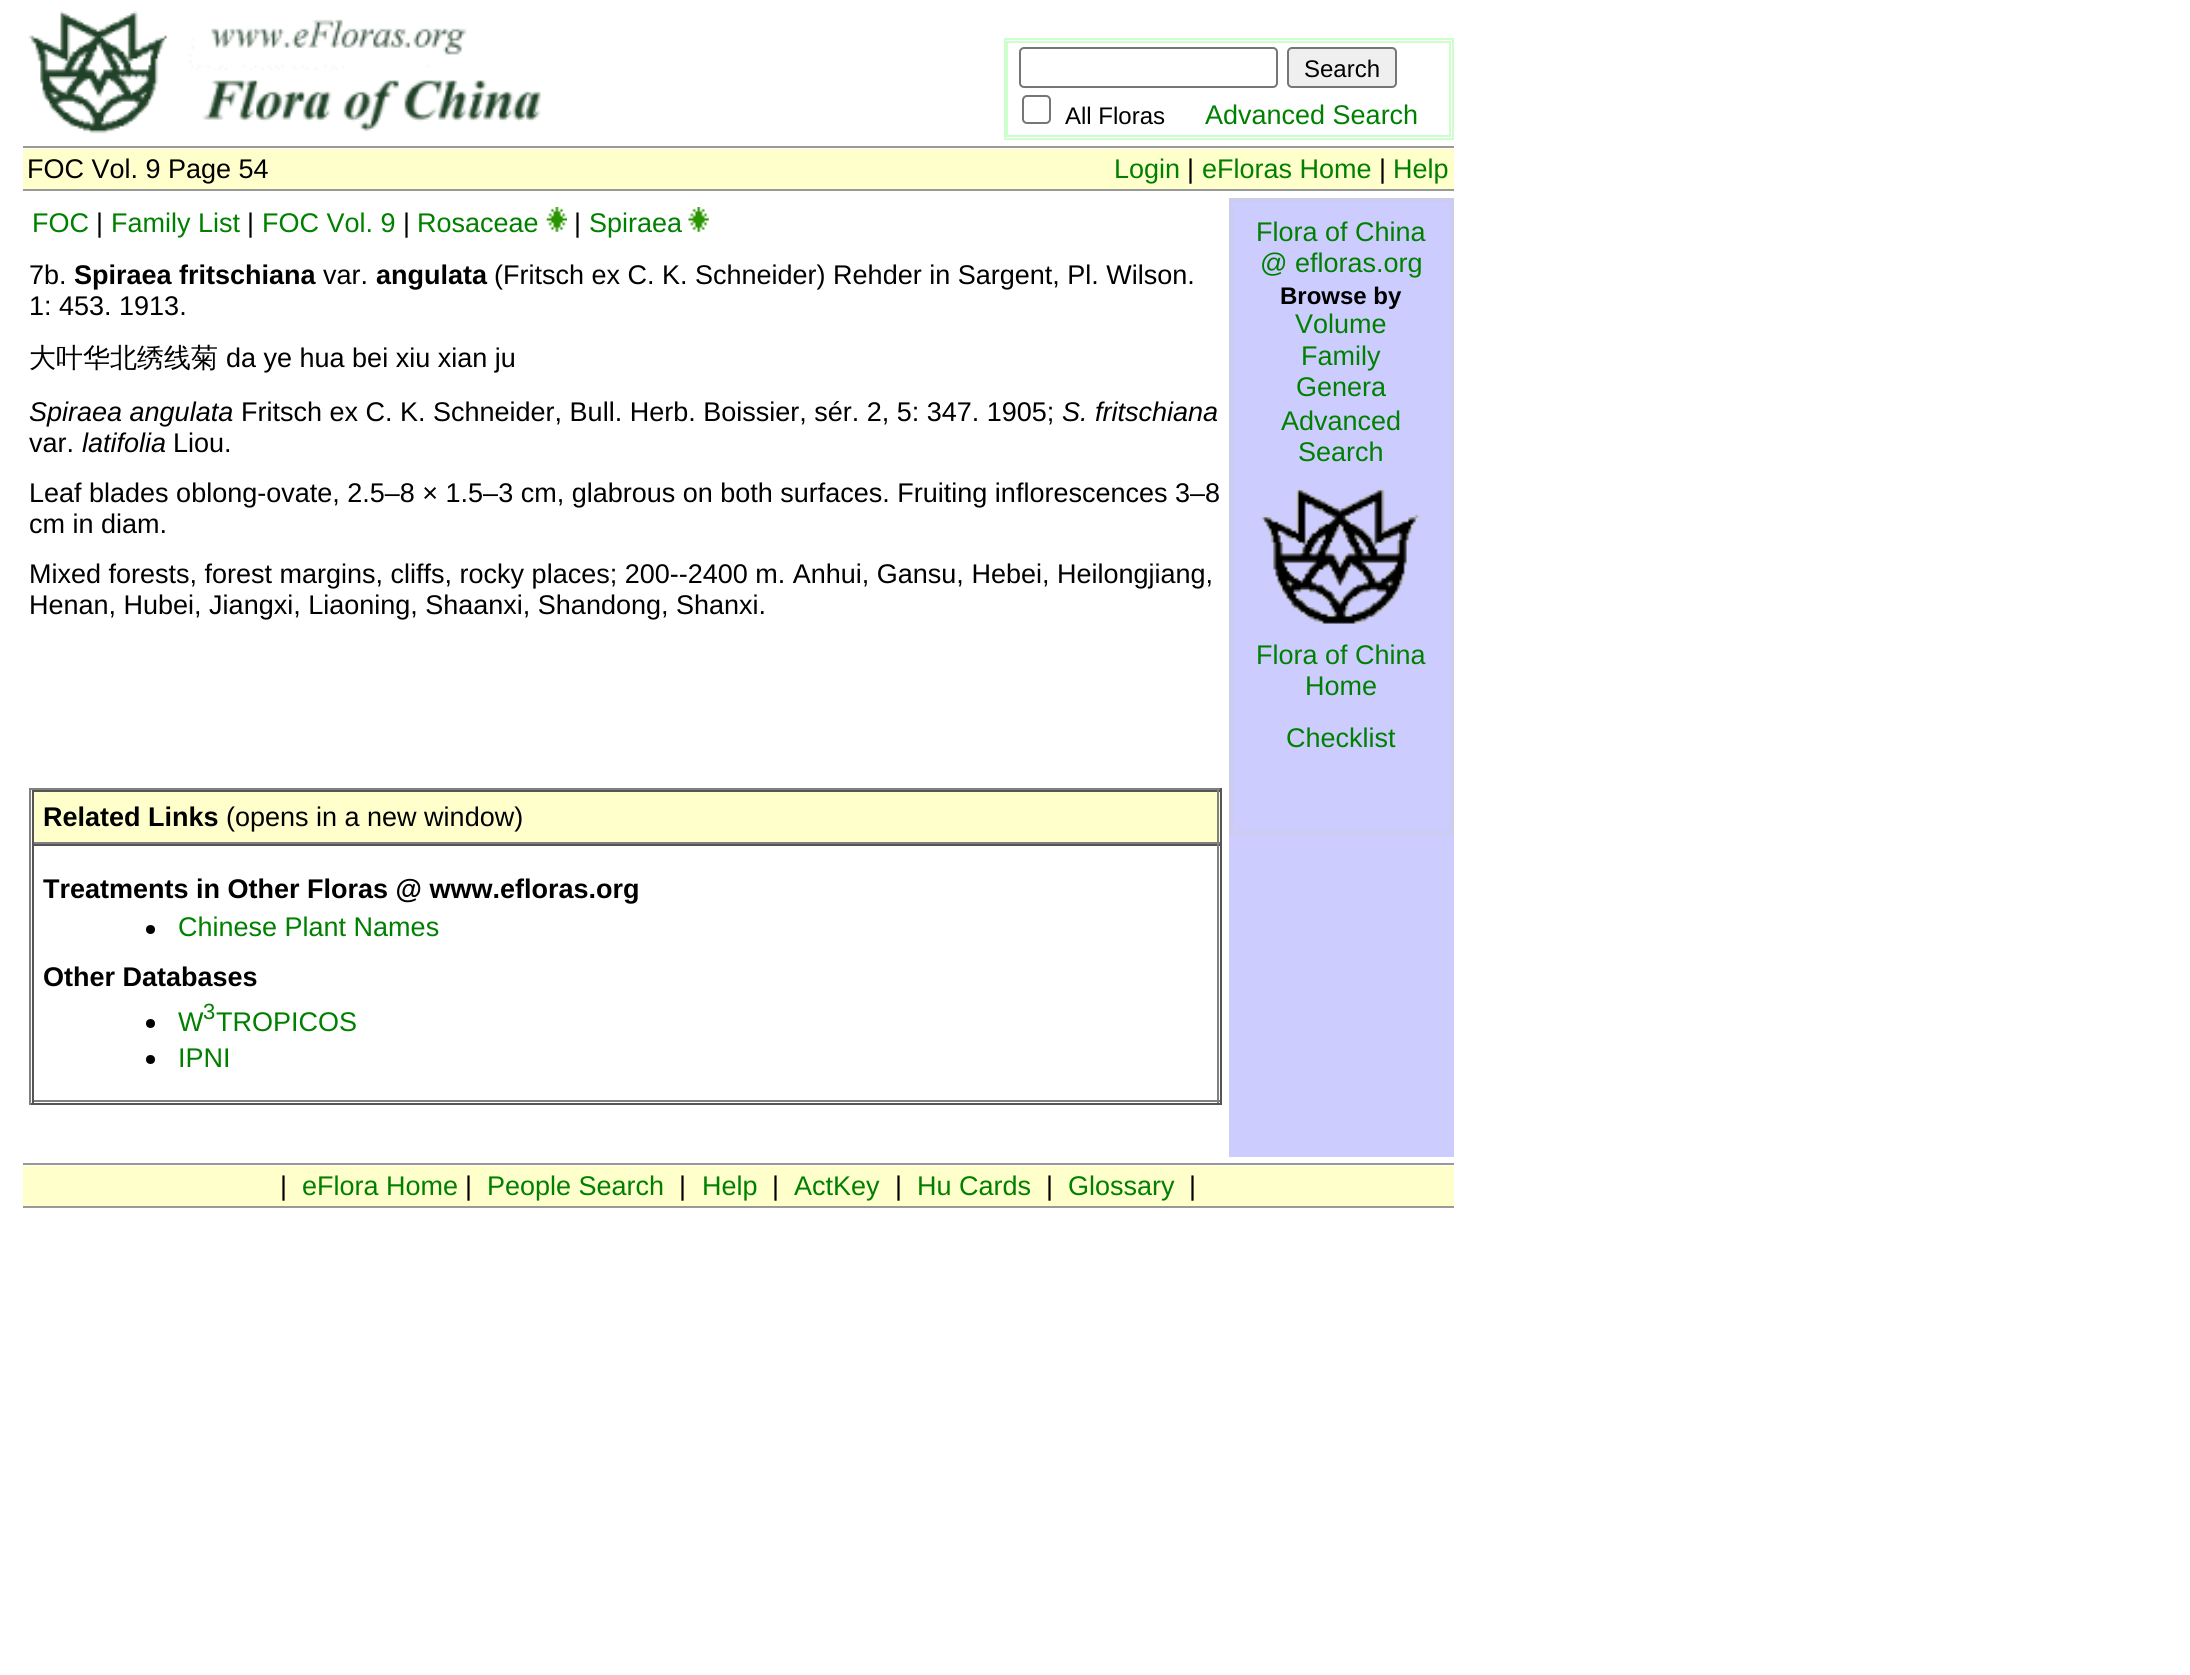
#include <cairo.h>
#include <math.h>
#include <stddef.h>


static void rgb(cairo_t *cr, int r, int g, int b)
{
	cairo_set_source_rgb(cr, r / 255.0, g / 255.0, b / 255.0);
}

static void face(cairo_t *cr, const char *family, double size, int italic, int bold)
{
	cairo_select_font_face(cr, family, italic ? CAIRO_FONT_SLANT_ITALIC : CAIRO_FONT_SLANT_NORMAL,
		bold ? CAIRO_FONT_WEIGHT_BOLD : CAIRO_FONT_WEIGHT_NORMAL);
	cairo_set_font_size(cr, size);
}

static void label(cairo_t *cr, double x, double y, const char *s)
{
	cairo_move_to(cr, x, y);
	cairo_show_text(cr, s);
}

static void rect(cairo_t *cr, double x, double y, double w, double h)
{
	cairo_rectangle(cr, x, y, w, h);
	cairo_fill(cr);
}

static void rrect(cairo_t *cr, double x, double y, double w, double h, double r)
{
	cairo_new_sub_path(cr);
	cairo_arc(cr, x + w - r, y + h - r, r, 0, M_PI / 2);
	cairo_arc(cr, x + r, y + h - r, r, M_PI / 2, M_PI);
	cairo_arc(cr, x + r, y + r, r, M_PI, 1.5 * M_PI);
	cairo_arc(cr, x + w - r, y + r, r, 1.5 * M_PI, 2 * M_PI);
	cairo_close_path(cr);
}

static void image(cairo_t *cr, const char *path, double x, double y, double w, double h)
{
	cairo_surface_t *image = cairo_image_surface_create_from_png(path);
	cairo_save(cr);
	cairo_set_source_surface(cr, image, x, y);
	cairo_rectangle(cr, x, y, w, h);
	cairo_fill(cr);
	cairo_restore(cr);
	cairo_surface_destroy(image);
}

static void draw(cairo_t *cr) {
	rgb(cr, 255, 255, 255);
	cairo_paint(cr);
	image(cr, "image0.png", 28, 10, 513, 124);
	cairo_rectangle(cr, 1005, 39, 448, 100);
	rgb(cr, 204, 255, 204);
	cairo_stroke(cr);
	cairo_rectangle(cr, 1007, 42, 443, 94);
	cairo_stroke(cr);
	rrect(cr, 1020, 48, 257, 39, 4);
	rgb(cr, 118, 118, 118);
	cairo_stroke(cr);
	rgb(cr, 239, 239, 239);
	rrect(cr, 1288, 48, 108, 39, 4);
	cairo_fill_preserve(cr);
	rgb(cr, 118, 118, 118);
	cairo_stroke(cr);
	face(cr, "Liberation Sans", 24, 0, 0);
	rgb(cr, 0, 0, 0);
	label(cr, 1304, 77, "Search");
	rrect(cr, 1023, 96, 27, 27, 4);
	rgb(cr, 118, 118, 118);
	cairo_stroke(cr);
	rgb(cr, 0, 0, 0);
	label(cr, 1065, 124, "All Floras");
	face(cr, "Liberation Sans", 27, 0, 0);
	rgb(cr, 0, 128, 0);
	label(cr, 1205, 124, "Advanced Search");
	rgb(cr, 153, 153, 153);
	rect(cr, 23, 146, 1431, 2);
	rgb(cr, 255, 255, 204);
	rect(cr, 23, 149, 1431, 40);
	rgb(cr, 0, 0, 0);
	label(cr, 27, 178, "FOC Vol. 9 Page 54");
	rgb(cr, 0, 128, 0);
	label(cr, 1114, 178, "Login");
	rgb(cr, 0, 0, 0);
	label(cr, 1187, 178, "|");
	rgb(cr, 0, 128, 0);
	label(cr, 1202, 178, "eFloras Home");
	rgb(cr, 0, 0, 0);
	label(cr, 1379, 178, "|");
	rgb(cr, 0, 128, 0);
	label(cr, 1393, 178, "Help");
	rgb(cr, 153, 153, 153);
	rect(cr, 23, 189, 1431, 2);
	rgb(cr, 0, 128, 0);
	label(cr, 32, 232, "FOC");
	rgb(cr, 0, 0, 0);
	label(cr, 96, 232, "|");
	rgb(cr, 0, 128, 0);
	label(cr, 111, 232, "Family List");
	rgb(cr, 0, 0, 0);
	label(cr, 247, 232, "|");
	rgb(cr, 0, 128, 0);
	label(cr, 262, 232, "FOC Vol. 9");
	rgb(cr, 0, 0, 0);
	label(cr, 403, 232, "|");
	rgb(cr, 0, 128, 0);
	label(cr, 417, 232, "Rosaceae");
	image(cr, "image1.png", 546, 207, 21, 25);
	rgb(cr, 0, 0, 0);
	label(cr, 574, 232, "|");
	rgb(cr, 0, 128, 0);
	label(cr, 589, 232, "Spiraea");
	image(cr, "image2.png", 688, 207, 21, 25);
	rgb(cr, 0, 0, 0);
	label(cr, 29, 284, "7b.");
	face(cr, "Liberation Sans", 27, 0, 1);
	label(cr, 74, 284, "Spiraea fritschiana");
	face(cr, "Liberation Sans", 27, 0, 0);
	label(cr, 323, 284, "var.");
	face(cr, "Liberation Sans", 27, 0, 1);
	label(cr, 376, 284, "angulata");
	face(cr, "Liberation Sans", 27, 0, 0);
	label(cr, 494, 284, "(Fritsch ex C. K. Schneider) Rehder in Sargent, Pl. Wilson.");
	label(cr, 29, 315, "1: 453. 1913.");
	face(cr, "WenQuanYi Zen Hei Medium", 27, 0, 0);
	label(cr, 29, 367, "大叶华北绣线菊");
	face(cr, "Liberation Sans", 27, 0, 0);
	label(cr, 226, 367, "da ye hua bei xiu xian ju");
	face(cr, "Liberation Sans", 27, 1, 0);
	label(cr, 29, 421, "Spiraea angulata");
	face(cr, "Liberation Sans", 27, 0, 0);
	label(cr, 241, 421, "Fritsch ex C. K. Schneider, Bull. Herb. Boissier, sér. 2, 5: 347. 1905;");
	face(cr, "Liberation Sans", 27, 1, 0);
	label(cr, 1062, 421, "S. fritschiana");
	face(cr, "Liberation Sans", 27, 0, 0);
	label(cr, 29, 452, "var.");
	face(cr, "Liberation Sans", 27, 1, 0);
	label(cr, 82, 452, "latifolia");
	face(cr, "Liberation Sans", 27, 0, 0);
	label(cr, 173, 452, "Liou.");
	label(cr, 29, 502, "Leaf blades oblong-ovate, 2.5–8 × 1.5–3 cm, glabrous on both surfaces. Fruiting inflorescences 3–8");
	label(cr, 29, 533, "cm in diam.");
	label(cr, 29, 583, "Mixed forests, forest margins, cliffs, rocky places; 200--2400 m. Anhui, Gansu, Hebei, Heilongjiang,");
	label(cr, 29, 614, "Henan, Hubei, Jiangxi, Liaoning, Shaanxi, Shandong, Shanxi.");
	rgb(cr, 128, 128, 128);
	rect(cr, 29, 788, 1193, 2);
	rgb(cr, 85, 85, 85);
	rect(cr, 1220, 788, 2, 317);
	rect(cr, 29, 1103, 1193, 2);
	rgb(cr, 128, 128, 128);
	rect(cr, 29, 788, 2, 317);
	rgb(cr, 255, 255, 204);
	rect(cr, 34, 792, 1186, 50);
	rgb(cr, 85, 85, 85);
	rect(cr, 32, 790, 1188, 2);
	rgb(cr, 128, 128, 128);
	rect(cr, 1217, 790, 2, 54);
	rect(cr, 32, 842, 1188, 2);
	rgb(cr, 85, 85, 85);
	rect(cr, 32, 790, 2, 54);
	face(cr, "Liberation Sans", 27, 0, 1);
	rgb(cr, 0, 0, 0);
	label(cr, 43, 826, "Related Links");
	face(cr, "Liberation Sans", 27, 0, 0);
	label(cr, 226, 826, "(opens in a new window)");
	rgb(cr, 85, 85, 85);
	rect(cr, 32, 844, 1188, 2);
	rgb(cr, 128, 128, 128);
	rect(cr, 1217, 844, 2, 259);
	rect(cr, 32, 1100, 1188, 2);
	rgb(cr, 85, 85, 85);
	rect(cr, 32, 844, 2, 259);
	face(cr, "Liberation Sans", 27, 0, 1);
	rgb(cr, 0, 0, 0);
	label(cr, 43, 898, "Treatments in Other Floras @ www.efloras.org");
	cairo_new_path(cr);
	cairo_arc(cr, 150.5, 929.5, 4.5, 0, 2 * M_PI);
	cairo_fill(cr);
	face(cr, "Liberation Sans", 27, 0, 0);
	rgb(cr, 0, 128, 0);
	label(cr, 178, 936, "Chinese Plant Names");
	face(cr, "Liberation Sans", 27, 0, 1);
	rgb(cr, 0, 0, 0);
	label(cr, 43, 986, "Other Databases");
	cairo_new_path(cr);
	cairo_arc(cr, 150.5, 1023.5, 4.5, 0, 2 * M_PI);
	cairo_fill(cr);
	face(cr, "Liberation Sans", 27, 0, 0);
	rgb(cr, 0, 128, 0);
	label(cr, 178, 1031, "W");
	face(cr, "Liberation Sans", 22, 0, 0);
	label(cr, 203, 1019, "3");
	face(cr, "Liberation Sans", 27, 0, 0);
	label(cr, 216, 1031, "TROPICOS");
	rgb(cr, 0, 0, 0);
	cairo_new_path(cr);
	cairo_arc(cr, 150.5, 1059.5, 4.5, 0, 2 * M_PI);
	cairo_fill(cr);
	rgb(cr, 0, 128, 0);
	label(cr, 178, 1067, "IPNI");
	rgb(cr, 204, 204, 255);
	rect(cr, 1229, 200, 225, 957);
	cairo_rectangle(cr, 1230, 199, 223, 635);
	rgb(cr, 204, 204, 238);
	cairo_stroke(cr);
	cairo_rectangle(cr, 1232, 201, 218, 631);
	cairo_stroke(cr);
	rgb(cr, 0, 128, 0);
	label(cr, 1256, 241, "Flora of China");
	label(cr, 1260, 272, "@ efloras.org");
	face(cr, "Liberation Sans", 24, 0, 1);
	rgb(cr, 0, 0, 0);
	label(cr, 1280, 304, "Browse by");
	face(cr, "Liberation Sans", 27, 0, 0);
	rgb(cr, 0, 128, 0);
	label(cr, 1295, 333, "Volume");
	label(cr, 1301, 365, "Family");
	label(cr, 1296, 396, "Genera");
	label(cr, 1281, 430, "Advanced");
	label(cr, 1298, 461, "Search");
	image(cr, "image3.png", 1261, 487, 160, 137);
	label(cr, 1256, 664, "Flora of China");
	label(cr, 1305, 695, "Home");
	label(cr, 1286, 747, "Checklist");
	rgb(cr, 153, 153, 153);
	rect(cr, 23, 1163, 1431, 2);
	rgb(cr, 255, 255, 204);
	rect(cr, 23, 1166, 1431, 40);
	rgb(cr, 0, 0, 0);
	label(cr, 280, 1195, "|");
	rgb(cr, 0, 128, 0);
	label(cr, 302, 1195, "eFlora Home");
	rgb(cr, 0, 0, 0);
	label(cr, 465, 1195, "|");
	rgb(cr, 0, 128, 0);
	label(cr, 487, 1195, "People Search");
	rgb(cr, 0, 0, 0);
	label(cr, 679, 1195, "|");
	rgb(cr, 0, 128, 0);
	label(cr, 702, 1195, "Help");
	rgb(cr, 0, 0, 0);
	label(cr, 772, 1195, "|");
	rgb(cr, 0, 128, 0);
	label(cr, 794, 1195, "ActKey");
	rgb(cr, 0, 0, 0);
	label(cr, 895, 1195, "|");
	rgb(cr, 0, 128, 0);
	label(cr, 917, 1195, "Hu Cards");
	rgb(cr, 0, 0, 0);
	label(cr, 1046, 1195, "|");
	rgb(cr, 0, 128, 0);
	label(cr, 1068, 1195, "Glossary");
	rgb(cr, 0, 0, 0);
	label(cr, 1189, 1195, "|");
	rgb(cr, 153, 153, 153);
	rect(cr, 23, 1206, 1431, 2);
}

int main(void) {
	cairo_surface_t *surface = cairo_image_surface_create(CAIRO_FORMAT_RGB24, 2190, 1675);
	cairo_t *cr = cairo_create(surface);
	cairo_font_options_t *options = cairo_font_options_create();
	cairo_font_options_set_hint_metrics(options, CAIRO_HINT_METRICS_OFF);
	cairo_font_options_set_hint_style(options, CAIRO_HINT_STYLE_NONE);
	cairo_set_font_options(cr, options);
	cairo_set_miter_limit(cr, 4);
	draw(cr);
	cairo_surface_write_to_png(surface, "render.png");
	cairo_font_options_destroy(options);
	cairo_destroy(cr);
	cairo_surface_destroy(surface);
	return 0;
}
